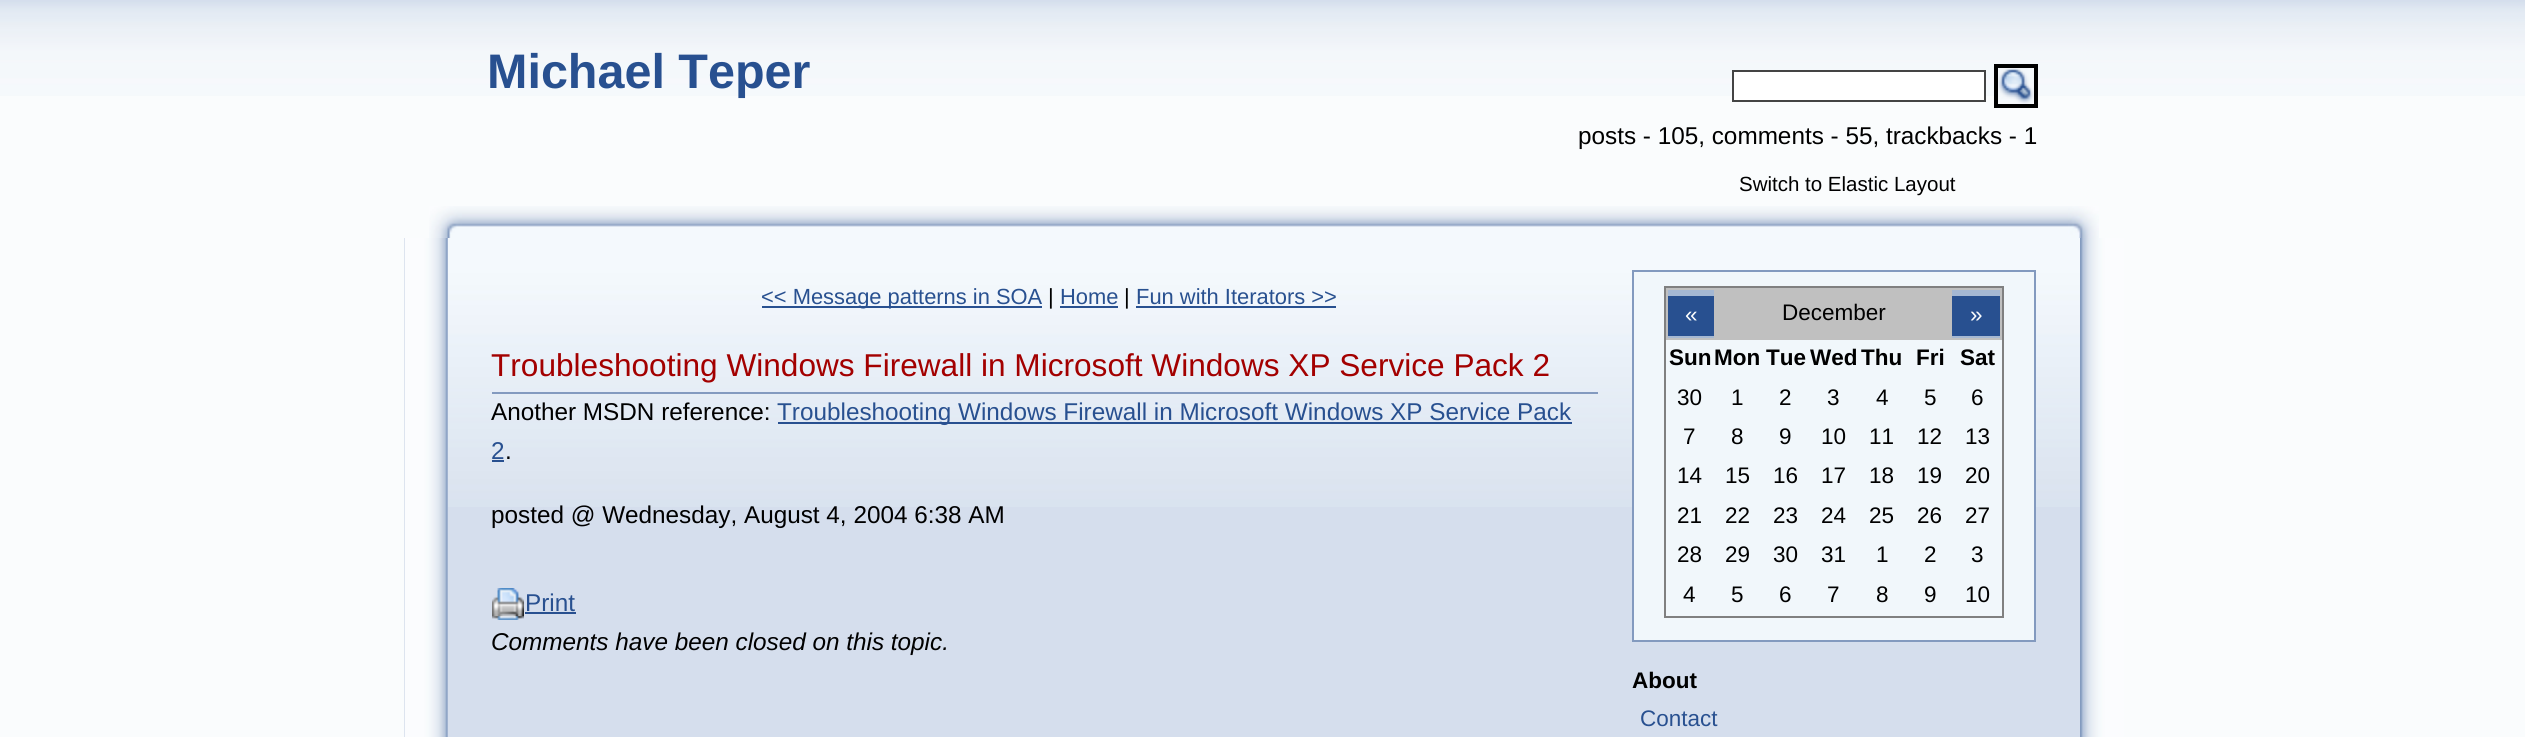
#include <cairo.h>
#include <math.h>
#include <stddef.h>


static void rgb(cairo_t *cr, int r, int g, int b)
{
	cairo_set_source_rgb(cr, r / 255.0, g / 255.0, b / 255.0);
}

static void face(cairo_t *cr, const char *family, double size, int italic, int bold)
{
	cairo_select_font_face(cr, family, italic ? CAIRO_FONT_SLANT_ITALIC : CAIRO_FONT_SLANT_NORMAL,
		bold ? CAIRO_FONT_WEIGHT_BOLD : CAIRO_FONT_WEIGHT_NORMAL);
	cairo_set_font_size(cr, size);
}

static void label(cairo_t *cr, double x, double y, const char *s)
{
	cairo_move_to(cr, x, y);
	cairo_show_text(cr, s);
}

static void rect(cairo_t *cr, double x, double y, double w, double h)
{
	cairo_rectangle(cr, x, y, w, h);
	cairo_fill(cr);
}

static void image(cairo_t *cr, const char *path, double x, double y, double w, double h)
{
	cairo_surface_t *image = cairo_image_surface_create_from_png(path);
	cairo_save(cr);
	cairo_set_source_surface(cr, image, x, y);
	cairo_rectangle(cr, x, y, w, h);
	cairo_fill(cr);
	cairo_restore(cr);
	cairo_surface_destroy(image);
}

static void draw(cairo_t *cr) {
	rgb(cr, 250, 252, 253);
	cairo_paint(cr);
	image(cr, "image0.png", 0, 0, 2525, 96);
	face(cr, "Liberation Sans", 48.5, 0, 1);
	rgb(cr, 40, 80, 144);
	label(cr, 487, 88, "Michael Teper");
	rgb(cr, 255, 255, 255);
	cairo_rectangle(cr, 1733, 71, 252, 30);
	cairo_fill_preserve(cr);
	rgb(cr, 68, 68, 68);
	cairo_stroke(cr);
	image(cr, "image1.png", 1998, 68, 36, 36);
	cairo_rectangle(cr, 1996, 66, 40, 40);
	rgb(cr, 0, 0, 0);
	cairo_set_line_width(cr, 4);
	cairo_stroke(cr);
	face(cr, "Liberation Sans", 24.3, 0, 0);
	label(cr, 1578, 144, "posts - 105, comments - 55, trackbacks - 1");
	face(cr, "Liberation Sans", 20.5, 0, 0);
	label(cr, 1739, 191, "Switch to Elastic Layout");
	image(cr, "image2.png", 429, 206, 33, 32);
	image(cr, "image3.png", 2068, 206, 31, 32);
	image(cr, "image4.png", 462, 206, 1606, 32);
	image(cr, "image5.png", 404, 238, 44, 499);
	image(cr, "image6.png", 2080, 238, 44, 499);
	rgb(cr, 213, 222, 237);
	rect(cr, 448, 507, 1632, 230);
	image(cr, "image7.png", 448, 238, 1632, 269);
	rgb(cr, 40, 80, 144);
	rect(cr, 762, 306, 280, 2);
	face(cr, "Liberation Sans", 21.9, 0, 0);
	label(cr, 761, 304, "<< Message patterns in SOA");
	rgb(cr, 0, 0, 0);
	label(cr, 1048, 304, "|");
	rgb(cr, 40, 80, 144);
	label(cr, 1060, 304, "Home");
	rect(cr, 1060, 306, 58, 2);
	rgb(cr, 0, 0, 0);
	label(cr, 1124, 304, "|");
	rgb(cr, 40, 80, 144);
	label(cr, 1136, 304, "Fun with Iterators >>");
	rect(cr, 1136, 306, 200, 2);
	rgb(cr, 131, 154, 191);
	rect(cr, 492, 392, 1106, 2);
	face(cr, "Liberation Sans", 31.6, 0, 0);
	rgb(cr, 163, 0, 0);
	label(cr, 491, 376, "Troubleshooting Windows Firewall in Microsoft Windows XP Service Pack 2");
	face(cr, "Liberation Sans", 24.3, 0, 0);
	rgb(cr, 0, 0, 0);
	label(cr, 491, 420, "Another MSDN reference:");
	rgb(cr, 40, 80, 144);
	rect(cr, 778, 422, 794, 2);
	label(cr, 777, 420, "Troubleshooting Windows Firewall in Microsoft Windows XP Service Pack");
	label(cr, 491, 459, "2");
	rect(cr, 492, 460, 12, 2);
	rgb(cr, 0, 0, 0);
	label(cr, 505, 459, ".");
	label(cr, 491, 523, "posted @ Wednesday, August 4, 2004 6:38 AM");
	image(cr, "image8.png", 492, 588, 32, 32);
	image(cr, "image9.png", 492, 588, 34, 28);
	rgb(cr, 40, 80, 144);
	label(cr, 525, 611, "Print");
	rect(cr, 526, 612, 50, 2);
	face(cr, "Liberation Sans", 24.3, 1, 0);
	rgb(cr, 0, 0, 0);
	label(cr, 491, 650, "Comments have been closed on this topic.");
	rgb(cr, 241, 247, 251);
	cairo_rectangle(cr, 1633, 271, 402, 370);
	cairo_fill_preserve(cr);
	rgb(cr, 131, 154, 191);
	cairo_set_line_width(cr, 2);
	cairo_stroke(cr);
	rgb(cr, 128, 128, 128);
	rect(cr, 1664, 286, 340, 2);
	rect(cr, 2002, 286, 2, 332);
	rect(cr, 1664, 616, 340, 2);
	rect(cr, 1664, 286, 2, 332);
	rgb(cr, 192, 192, 192);
	rect(cr, 1666, 288, 336, 52);
	rgb(cr, 165, 184, 211);
	rect(cr, 1668, 290, 46, 6);
	rgb(cr, 40, 80, 144);
	rect(cr, 1668, 296, 46, 40);
	rgb(cr, 165, 184, 211);
	rect(cr, 1668, 336, 46, 2);
	face(cr, "Liberation Sans", 22.5, 0, 0);
	rgb(cr, 250, 252, 253);
	label(cr, 1685, 322, "«");
	rgb(cr, 0, 0, 0);
	label(cr, 1782, 320, "December");
	rgb(cr, 165, 184, 211);
	rect(cr, 1952, 290, 48, 6);
	rgb(cr, 40, 80, 144);
	rect(cr, 1952, 296, 48, 40);
	rgb(cr, 165, 184, 211);
	rect(cr, 1952, 336, 48, 2);
	rgb(cr, 250, 252, 253);
	label(cr, 1970, 322, "»");
	face(cr, "Liberation Sans", 22.5, 0, 1);
	rgb(cr, 0, 0, 0);
	label(cr, 1669, 365, "Sun");
	label(cr, 1714, 365, "Mon");
	label(cr, 1766, 365, "Tue");
	label(cr, 1810, 365, "Wed");
	label(cr, 1861, 365, "Thu");
	label(cr, 1916, 365, "Fri");
	label(cr, 1960, 365, "Sat");
	face(cr, "Liberation Sans", 22.5, 0, 0);
	label(cr, 1677, 405, "30");
	label(cr, 1731, 405, "1");
	label(cr, 1779, 405, "2");
	label(cr, 1827, 405, "3");
	label(cr, 1876, 405, "4");
	label(cr, 1924, 405, "5");
	label(cr, 1971, 405, "6");
	label(cr, 1683, 444, "7");
	label(cr, 1731, 444, "8");
	label(cr, 1779, 444, "9");
	label(cr, 1821, 444, "10");
	label(cr, 1869, 444, "11");
	label(cr, 1917, 444, "12");
	label(cr, 1965, 444, "13");
	label(cr, 1677, 483, "14");
	label(cr, 1725, 483, "15");
	label(cr, 1773, 483, "16");
	label(cr, 1821, 483, "17");
	label(cr, 1869, 483, "18");
	label(cr, 1917, 483, "19");
	label(cr, 1965, 483, "20");
	label(cr, 1677, 523, "21");
	label(cr, 1725, 523, "22");
	label(cr, 1773, 523, "23");
	label(cr, 1821, 523, "24");
	label(cr, 1869, 523, "25");
	label(cr, 1917, 523, "26");
	label(cr, 1965, 523, "27");
	label(cr, 1677, 562, "28");
	label(cr, 1725, 562, "29");
	label(cr, 1773, 562, "30");
	label(cr, 1821, 562, "31");
	label(cr, 1876, 562, "1");
	label(cr, 1924, 562, "2");
	label(cr, 1971, 562, "3");
	label(cr, 1683, 602, "4");
	label(cr, 1731, 602, "5");
	label(cr, 1779, 602, "6");
	label(cr, 1827, 602, "7");
	label(cr, 1876, 602, "8");
	label(cr, 1924, 602, "9");
	label(cr, 1965, 602, "10");
	face(cr, "Liberation Sans", 22.5, 0, 1);
	label(cr, 1632, 688, "About");
	face(cr, "Liberation Sans", 22.5, 0, 0);
	rgb(cr, 40, 80, 144);
	label(cr, 1640, 726, "Contact");
}

int main(void) {
	cairo_surface_t *surface = cairo_image_surface_create(CAIRO_FORMAT_RGB24, 2525, 737);
	cairo_t *cr = cairo_create(surface);
	cairo_font_options_t *options = cairo_font_options_create();
	cairo_font_options_set_hint_metrics(options, CAIRO_HINT_METRICS_OFF);
	cairo_font_options_set_hint_style(options, CAIRO_HINT_STYLE_NONE);
	cairo_set_font_options(cr, options);
	cairo_set_miter_limit(cr, 4);
	draw(cr);
	cairo_surface_write_to_png(surface, "render.png");
	cairo_font_options_destroy(options);
	cairo_destroy(cr);
	cairo_surface_destroy(surface);
	return 0;
}
